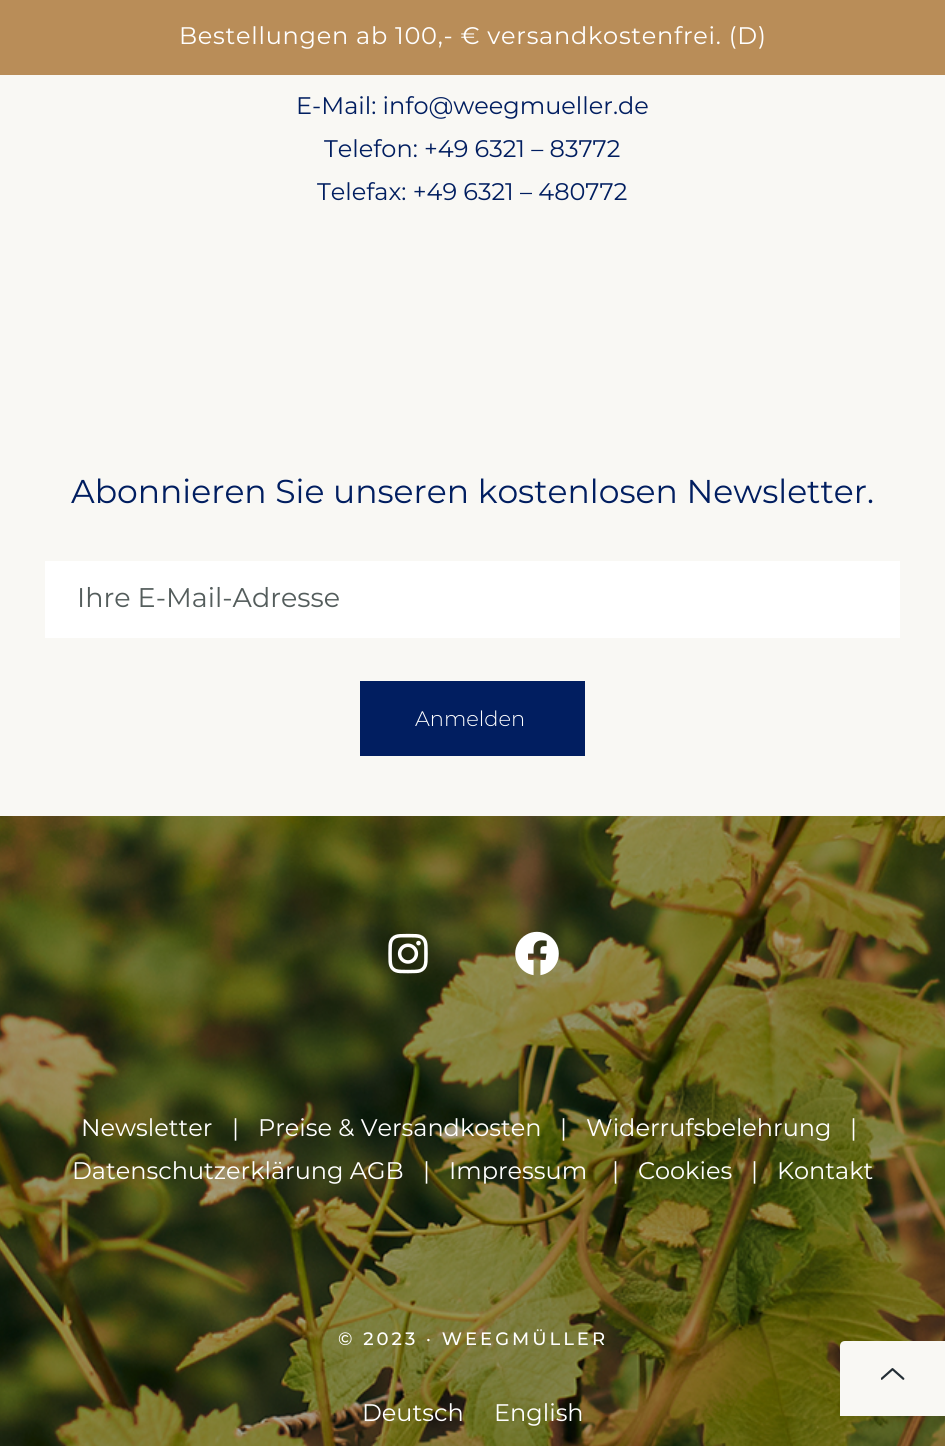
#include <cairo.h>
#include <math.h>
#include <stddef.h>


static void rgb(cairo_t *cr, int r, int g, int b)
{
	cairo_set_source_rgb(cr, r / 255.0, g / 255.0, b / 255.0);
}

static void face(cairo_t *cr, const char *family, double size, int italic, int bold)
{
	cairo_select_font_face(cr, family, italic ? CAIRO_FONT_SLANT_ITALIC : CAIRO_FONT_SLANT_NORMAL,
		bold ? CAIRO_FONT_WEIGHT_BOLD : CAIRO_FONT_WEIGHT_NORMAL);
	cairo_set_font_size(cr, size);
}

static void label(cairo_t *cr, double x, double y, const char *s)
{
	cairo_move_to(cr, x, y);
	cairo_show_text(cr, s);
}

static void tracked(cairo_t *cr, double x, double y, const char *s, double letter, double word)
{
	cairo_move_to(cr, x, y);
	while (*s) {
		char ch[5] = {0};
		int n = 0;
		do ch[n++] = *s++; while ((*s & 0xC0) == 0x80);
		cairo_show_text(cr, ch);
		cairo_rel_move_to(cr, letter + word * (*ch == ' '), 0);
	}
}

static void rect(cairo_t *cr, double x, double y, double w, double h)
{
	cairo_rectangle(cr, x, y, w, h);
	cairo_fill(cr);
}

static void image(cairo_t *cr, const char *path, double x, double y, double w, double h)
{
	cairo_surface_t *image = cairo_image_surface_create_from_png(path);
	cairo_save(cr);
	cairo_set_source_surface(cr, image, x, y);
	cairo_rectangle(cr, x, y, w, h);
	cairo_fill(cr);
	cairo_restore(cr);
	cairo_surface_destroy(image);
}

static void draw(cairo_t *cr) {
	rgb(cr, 249, 248, 244);
	cairo_paint(cr);
	rgb(cr, 185, 141, 88);
	rect(cr, 0, 0, 945, 75);
	face(cr, "Montserrat", 24, 0, 0);
	rgb(cr, 255, 255, 255);
	tracked(cr, 179, 44, "Bestellungen ab 100,- € versandkostenfrei. (D)", 0.75, 0);
	rgb(cr, 1, 30, 96);
	label(cr, 296, 114, "E-Mail: info@weegmueller.de");
	label(cr, 324, 157, "Telefon: +49 6321 – 83772");
	label(cr, 317, 200, "Telefax: +49 6321 – 480772");
	face(cr, "Montserrat", 33, 0, 0);
	label(cr, 71, 503, "Abonnieren Sie unseren kostenlosen Newsletter.");
	rgb(cr, 255, 255, 255);
	rect(cr, 45, 561, 855, 77);
	face(cr, "Montserrat", 27, 0, 0);
	rgb(cr, 84, 93, 92);
	label(cr, 77, 607, "Ihre E-Mail-Adresse");
	rgb(cr, 1, 30, 96);
	rect(cr, 360, 681, 225, 75);
	face(cr, "Montserrat Light", 21, 0, 0);
	rgb(cr, 255, 255, 255);
	label(cr, 415, 726, "Anmelden");
	image(cr, "image0.png", 0, 816, 945, 630);
	image(cr, "image1.png", 388, 933, 40, 41);
	image(cr, "image2.png", 515, 931, 44, 45);
	face(cr, "Montserrat", 24, 0, 0);
	label(cr, 81, 1136, "Newsletter");
	label(cr, 232, 1136, "|");
	label(cr, 258, 1136, "Preise & Versandkosten");
	label(cr, 560, 1136, "|");
	label(cr, 586, 1136, "Widerrufsbelehrung");
	label(cr, 850, 1136, "|");
	label(cr, 72, 1179, "Datenschutzerklärung AGB");
	label(cr, 423, 1179, "|");
	label(cr, 449, 1179, "Impressum");
	label(cr, 612, 1179, "|");
	label(cr, 638, 1179, "Cookies");
	label(cr, 751, 1179, "|");
	label(cr, 777, 1179, "Kontakt");
	face(cr, "Montserrat Medium", 18, 0, 0);
	tracked(cr, 338, 1345, "© 2023 · WEEGMÜLLER", 3, 0);
	face(cr, "Montserrat", 24, 0, 0);
	label(cr, 362, 1421, "Deutsch");
	label(cr, 494, 1421, "English");
	rgb(cr, 249, 248, 244);
	cairo_new_path(cr);
	cairo_move_to(cr, 845, 1341);
	cairo_line_to(cr, 945, 1341);
	cairo_line_to(cr, 945, 1416);
	cairo_line_to(cr, 840, 1416);
	cairo_line_to(cr, 840, 1346);
	cairo_curve_to(cr, 840, 1343, 842, 1341, 845, 1341);
	cairo_close_path(cr);
	cairo_fill(cr);
	image(cr, "image3.png", 881, 1368, 24, 12);
}

int main(void) {
	cairo_surface_t *surface = cairo_image_surface_create(CAIRO_FORMAT_RGB24, 945, 1446);
	cairo_t *cr = cairo_create(surface);
	cairo_font_options_t *options = cairo_font_options_create();
	cairo_font_options_set_hint_metrics(options, CAIRO_HINT_METRICS_OFF);
	cairo_font_options_set_hint_style(options, CAIRO_HINT_STYLE_NONE);
	cairo_set_font_options(cr, options);
	cairo_set_miter_limit(cr, 4);
	draw(cr);
	cairo_surface_write_to_png(surface, "render.png");
	cairo_font_options_destroy(options);
	cairo_destroy(cr);
	cairo_surface_destroy(surface);
	return 0;
}
